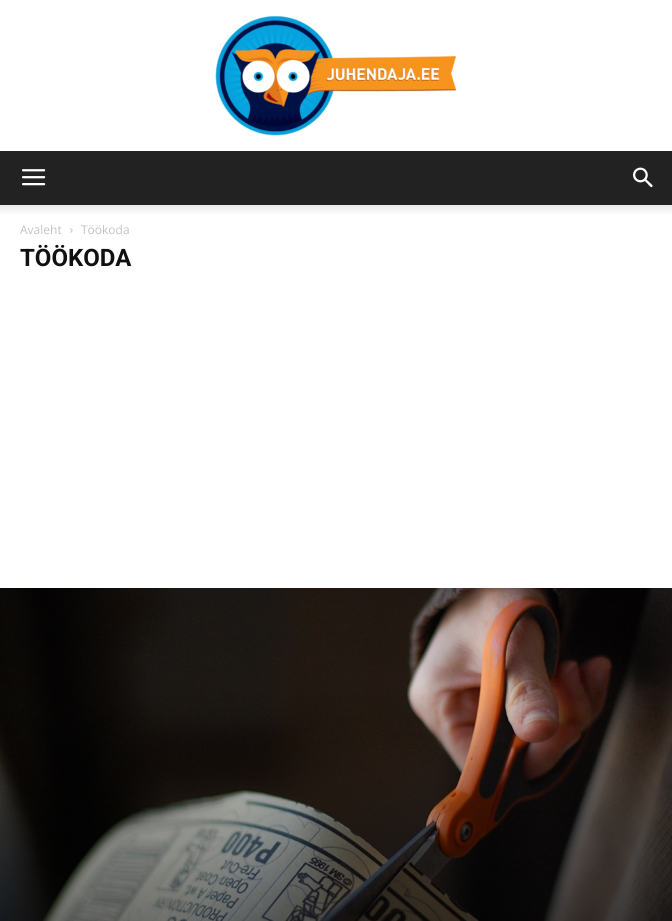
#include <cairo.h>
#include <math.h>
#include <stddef.h>


static void rgb(cairo_t *cr, int r, int g, int b)
{
	cairo_set_source_rgb(cr, r / 255.0, g / 255.0, b / 255.0);
}

static void face(cairo_t *cr, const char *family, double size, int italic, int bold)
{
	cairo_select_font_face(cr, family, italic ? CAIRO_FONT_SLANT_ITALIC : CAIRO_FONT_SLANT_NORMAL,
		bold ? CAIRO_FONT_WEIGHT_BOLD : CAIRO_FONT_WEIGHT_NORMAL);
	cairo_set_font_size(cr, size);
}

static void label(cairo_t *cr, double x, double y, const char *s)
{
	cairo_move_to(cr, x, y);
	cairo_show_text(cr, s);
}

static void rect(cairo_t *cr, double x, double y, double w, double h)
{
	cairo_rectangle(cr, x, y, w, h);
	cairo_fill(cr);
}

static void image(cairo_t *cr, const char *path, double x, double y, double w, double h)
{
	cairo_surface_t *image = cairo_image_surface_create_from_png(path);
	cairo_save(cr);
	cairo_set_source_surface(cr, image, x, y);
	cairo_rectangle(cr, x, y, w, h);
	cairo_fill(cr);
	cairo_restore(cr);
	cairo_surface_destroy(image);
}

static void draw(cairo_t *cr) {
	rgb(cr, 255, 255, 255);
	cairo_paint(cr);
	image(cr, "image0.png", 215, 16, 242, 120);
	rgb(cr, 34, 34, 34);
	rect(cr, 0, 151, 672, 54);
	image(cr, "image1.png", 22, 169, 24, 17);
	image(cr, "image2.png", 633, 167, 20, 21);
	image(cr, "image3.png", 0, 205, 672, 9);
	face(cr, "Open Sans", 12, 0, 0);
	rgb(cr, 195, 195, 195);
	label(cr, 20, 234, "Avaleht");
	image(cr, "image4.png", 70, 228, 3, 5);
	label(cr, 81, 234, "Töökoda");
	face(cr, "Roboto", 24, 0, 1);
	rgb(cr, 17, 17, 17);
	label(cr, 20, 266, "TÖÖKODA");
	image(cr, "image5.png", 0, 588, 672, 333);
}

int main(void) {
	cairo_surface_t *surface = cairo_image_surface_create(CAIRO_FORMAT_RGB24, 672, 921);
	cairo_t *cr = cairo_create(surface);
	cairo_font_options_t *options = cairo_font_options_create();
	cairo_font_options_set_hint_metrics(options, CAIRO_HINT_METRICS_OFF);
	cairo_font_options_set_hint_style(options, CAIRO_HINT_STYLE_NONE);
	cairo_set_font_options(cr, options);
	cairo_set_miter_limit(cr, 4);
	draw(cr);
	cairo_surface_write_to_png(surface, "render.png");
	cairo_font_options_destroy(options);
	cairo_destroy(cr);
	cairo_surface_destroy(surface);
	return 0;
}
